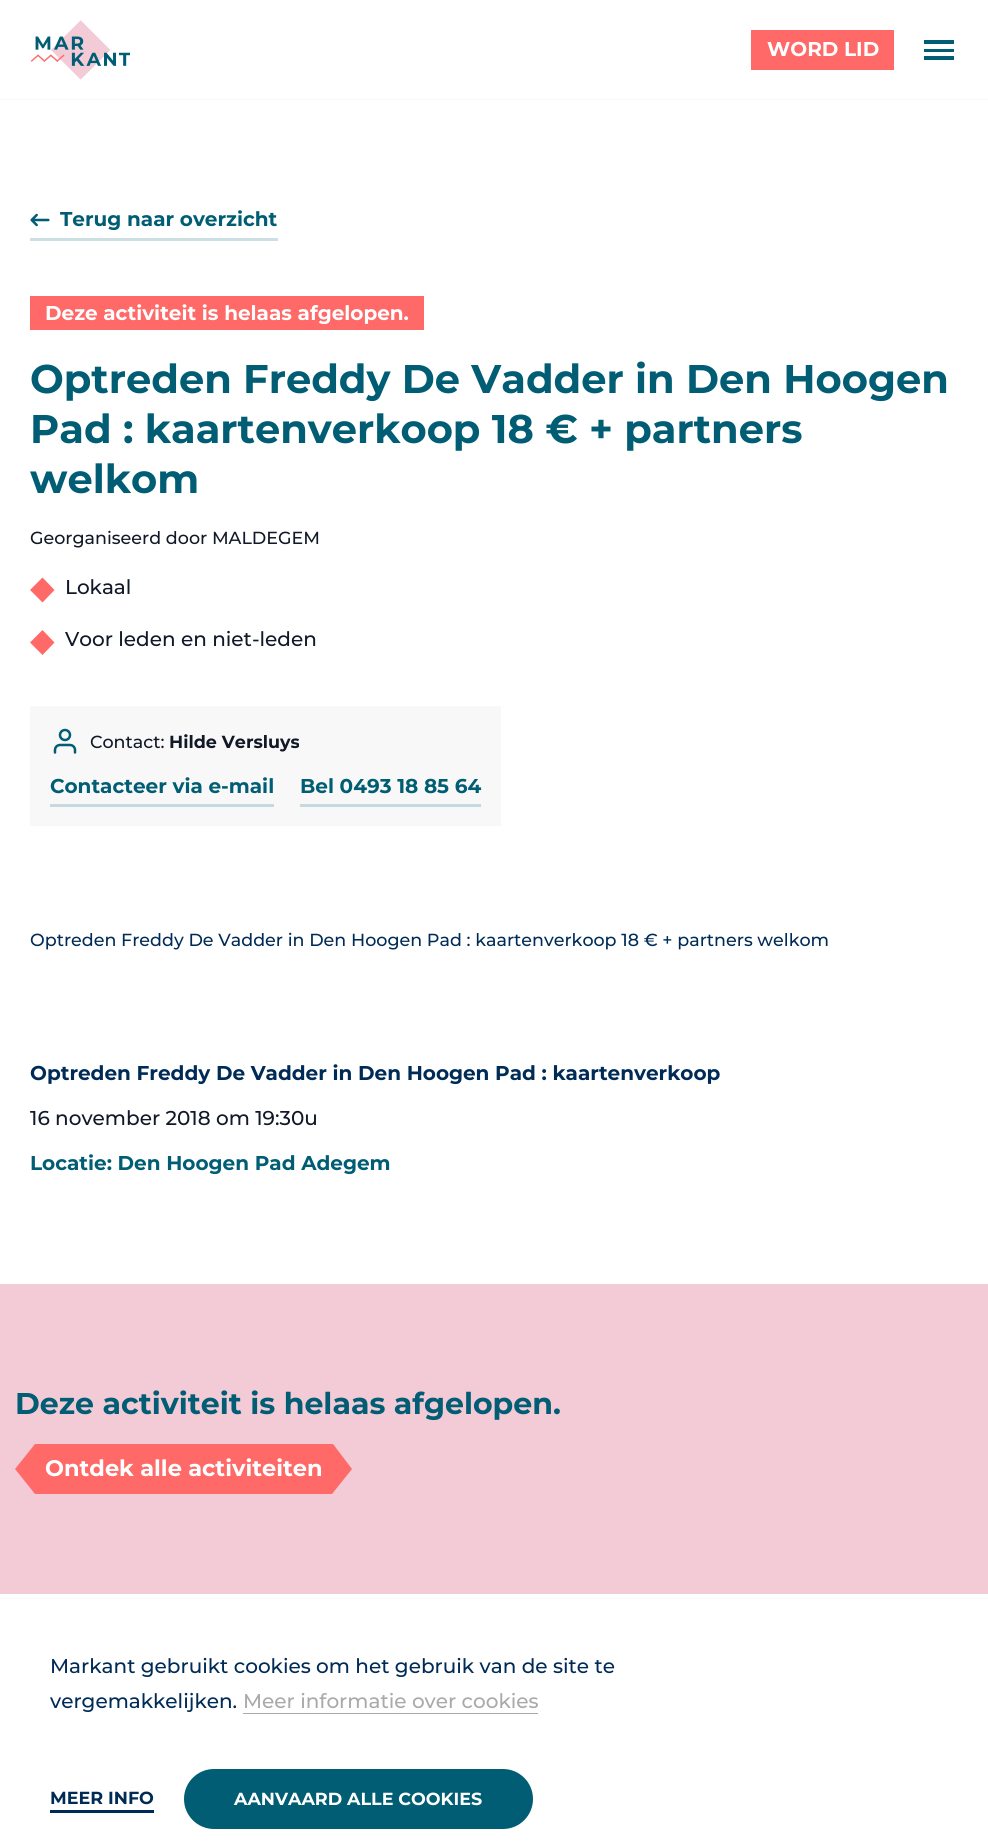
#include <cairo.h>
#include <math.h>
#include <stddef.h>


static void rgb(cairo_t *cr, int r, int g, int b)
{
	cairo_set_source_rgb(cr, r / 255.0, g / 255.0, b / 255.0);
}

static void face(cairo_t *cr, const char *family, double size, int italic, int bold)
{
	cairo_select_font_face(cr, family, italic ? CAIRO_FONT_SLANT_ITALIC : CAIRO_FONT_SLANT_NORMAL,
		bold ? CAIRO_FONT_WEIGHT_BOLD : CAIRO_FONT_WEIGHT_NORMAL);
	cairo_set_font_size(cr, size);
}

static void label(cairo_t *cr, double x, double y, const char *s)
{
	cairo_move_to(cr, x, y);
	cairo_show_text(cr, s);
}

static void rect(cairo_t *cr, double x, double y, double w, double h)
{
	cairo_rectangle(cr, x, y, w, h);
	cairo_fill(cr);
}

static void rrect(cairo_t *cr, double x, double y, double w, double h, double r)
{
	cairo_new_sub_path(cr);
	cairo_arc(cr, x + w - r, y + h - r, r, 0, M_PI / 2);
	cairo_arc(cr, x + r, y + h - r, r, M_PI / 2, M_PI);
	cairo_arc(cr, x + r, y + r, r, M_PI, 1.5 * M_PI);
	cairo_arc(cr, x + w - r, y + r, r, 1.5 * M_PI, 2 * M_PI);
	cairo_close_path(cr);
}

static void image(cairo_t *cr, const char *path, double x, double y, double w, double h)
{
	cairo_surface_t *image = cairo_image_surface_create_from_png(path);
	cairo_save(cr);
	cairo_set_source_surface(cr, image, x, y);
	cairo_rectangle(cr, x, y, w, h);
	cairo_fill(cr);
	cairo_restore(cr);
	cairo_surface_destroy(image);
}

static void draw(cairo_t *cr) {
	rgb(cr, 255, 255, 255);
	cairo_paint(cr);
	rgb(cr, 245, 249, 253);
	rect(cr, 0, 99, 988, 1);
	image(cr, "image0.png", 31, 20, 99, 60);
	rgb(cr, 255, 105, 103);
	rect(cr, 751, 30, 143, 40);
	face(cr, "Montserrat", 20, 0, 1);
	rgb(cr, 255, 255, 255);
	label(cr, 767, 56, "WORD LID");
	rgb(cr, 0, 93, 116);
	rect(cr, 924, 40, 30, 4);
	rect(cr, 924, 49, 30, 3);
	rect(cr, 924, 56, 30, 4);
	image(cr, "image1.png", 30, 213, 20, 14);
	label(cr, 60, 226, "Terug naar overzicht");
	rgb(cr, 204, 223, 227);
	rect(cr, 30, 238, 248, 3);
	rgb(cr, 255, 105, 103);
	rect(cr, 30, 296, 394, 34);
	rgb(cr, 255, 255, 255);
	label(cr, 45, 320, "Deze activiteit is helaas afgelopen.");
	face(cr, "Montserrat", 40, 0, 1);
	rgb(cr, 0, 93, 116);
	label(cr, 30, 393, "Optreden Freddy De Vadder in Den Hoogen");
	label(cr, 30, 443, "Pad : kaartenverkoop 18 € + partners");
	label(cr, 30, 493, "welkom");
	face(cr, "Montserrat Medium", 17.5, 0, 0);
	rgb(cr, 17, 24, 39);
	label(cr, 30, 544, "Georganiseerd door MALDEGEM");
	rgb(cr, 255, 105, 103);
	cairo_new_path(cr);
	cairo_move_to(cr, 30, 590);
	cairo_line_to(cr, 42.5, 577.5);
	cairo_line_to(cr, 54.5, 590);
	cairo_line_to(cr, 42.5, 602.5);
	cairo_close_path(cr);
	cairo_fill(cr);
	face(cr, "Montserrat Medium", 20, 0, 0);
	rgb(cr, 17, 24, 39);
	label(cr, 65, 594, "Lokaal");
	rgb(cr, 255, 105, 103);
	cairo_new_path(cr);
	cairo_move_to(cr, 30, 642.5);
	cairo_line_to(cr, 42.5, 630);
	cairo_line_to(cr, 54.5, 642.5);
	cairo_line_to(cr, 42.5, 655);
	cairo_close_path(cr);
	cairo_fill(cr);
	rgb(cr, 17, 24, 39);
	label(cr, 65, 646, "Voor leden en niet-leden");
	rgb(cr, 248, 248, 248);
	rect(cr, 30, 706, 471, 120);
	image(cr, "image2.png", 53, 728, 24, 26);
	face(cr, "Montserrat Medium", 17.5, 0, 0);
	rgb(cr, 17, 24, 39);
	label(cr, 90, 748, "Contact:");
	face(cr, "Montserrat", 17.5, 0, 1);
	label(cr, 169, 748, "Hilde Versluys");
	face(cr, "Montserrat", 20, 0, 1);
	rgb(cr, 0, 93, 116);
	label(cr, 50, 793, "Contacteer via e-mail");
	rgb(cr, 198, 217, 222);
	rect(cr, 50, 804, 224, 3);
	rgb(cr, 0, 93, 116);
	label(cr, 300, 793, "Bel 0493 18 85 64");
	rgb(cr, 198, 217, 222);
	rect(cr, 300, 804, 181, 3);
	face(cr, "Montserrat Medium", 17.5, 0, 0);
	rgb(cr, 0, 43, 86);
	label(cr, 30, 946, "Optreden Freddy De Vadder in Den Hoogen Pad : kaartenverkoop 18 € + partners welkom");
	face(cr, "Montserrat", 20, 0, 1);
	label(cr, 30, 1080, "Optreden Freddy De Vadder in Den Hoogen Pad : kaartenverkoop");
	face(cr, "Montserrat Medium", 20, 0, 0);
	rgb(cr, 17, 24, 39);
	label(cr, 30, 1125, "16 november 2018 om 19:30u");
	face(cr, "Montserrat", 20, 0, 1);
	rgb(cr, 0, 93, 116);
	label(cr, 30, 1170, "Locatie: Den Hoogen Pad Adegem");
	rgb(cr, 242, 203, 214);
	rect(cr, 0, 1284, 988, 310);
	face(cr, "Montserrat", 30, 0, 1);
	rgb(cr, 0, 93, 116);
	label(cr, 15, 1414, "Deze activiteit is helaas afgelopen.");
	rgb(cr, 255, 105, 103);
	cairo_new_path(cr);
	cairo_move_to(cr, 333, 1444);
	cairo_line_to(cr, 352, 1469);
	cairo_line_to(cr, 332, 1494);
	cairo_line_to(cr, 35, 1494);
	cairo_line_to(cr, 15, 1469);
	cairo_line_to(cr, 35, 1444);
	cairo_close_path(cr);
	cairo_fill(cr);
	face(cr, "Montserrat", 22.5, 0, 1);
	rgb(cr, 255, 255, 255);
	label(cr, 45, 1476, "Ontdek alle activiteiten");
	rgb(cr, 245, 249, 253);
	rect(cr, 0, 1598, 988, 1);
	face(cr, "Montserrat Medium", 20, 0, 0);
	rgb(cr, 0, 43, 86);
	label(cr, 50, 1673, "Markant gebruikt cookies om het gebruik van de site te");
	label(cr, 50, 1708, "vergemakkelijken.");
	rgb(cr, 170, 170, 170);
	label(cr, 243, 1708, "Meer informatie over cookies");
	rect(cr, 243, 1713, 295, 1);
	rgb(cr, 0, 43, 86);
	rect(cr, 50, 1810, 104, 3);
	face(cr, "Montserrat", 17.5, 0, 1);
	label(cr, 50, 1804, "MEER INFO");
	rgb(cr, 0, 93, 116);
	rrect(cr, 184, 1769, 349, 60, 30);
	cairo_fill(cr);
	rgb(cr, 255, 255, 255);
	label(cr, 234, 1805, "AANVAARD ALLE COOKIES");
}

int main(void) {
	cairo_surface_t *surface = cairo_image_surface_create(CAIRO_FORMAT_RGB24, 988, 1848);
	cairo_t *cr = cairo_create(surface);
	cairo_font_options_t *options = cairo_font_options_create();
	cairo_font_options_set_hint_metrics(options, CAIRO_HINT_METRICS_OFF);
	cairo_font_options_set_hint_style(options, CAIRO_HINT_STYLE_NONE);
	cairo_set_font_options(cr, options);
	cairo_set_miter_limit(cr, 4);
	draw(cr);
	cairo_surface_write_to_png(surface, "render.png");
	cairo_font_options_destroy(options);
	cairo_destroy(cr);
	cairo_surface_destroy(surface);
	return 0;
}
